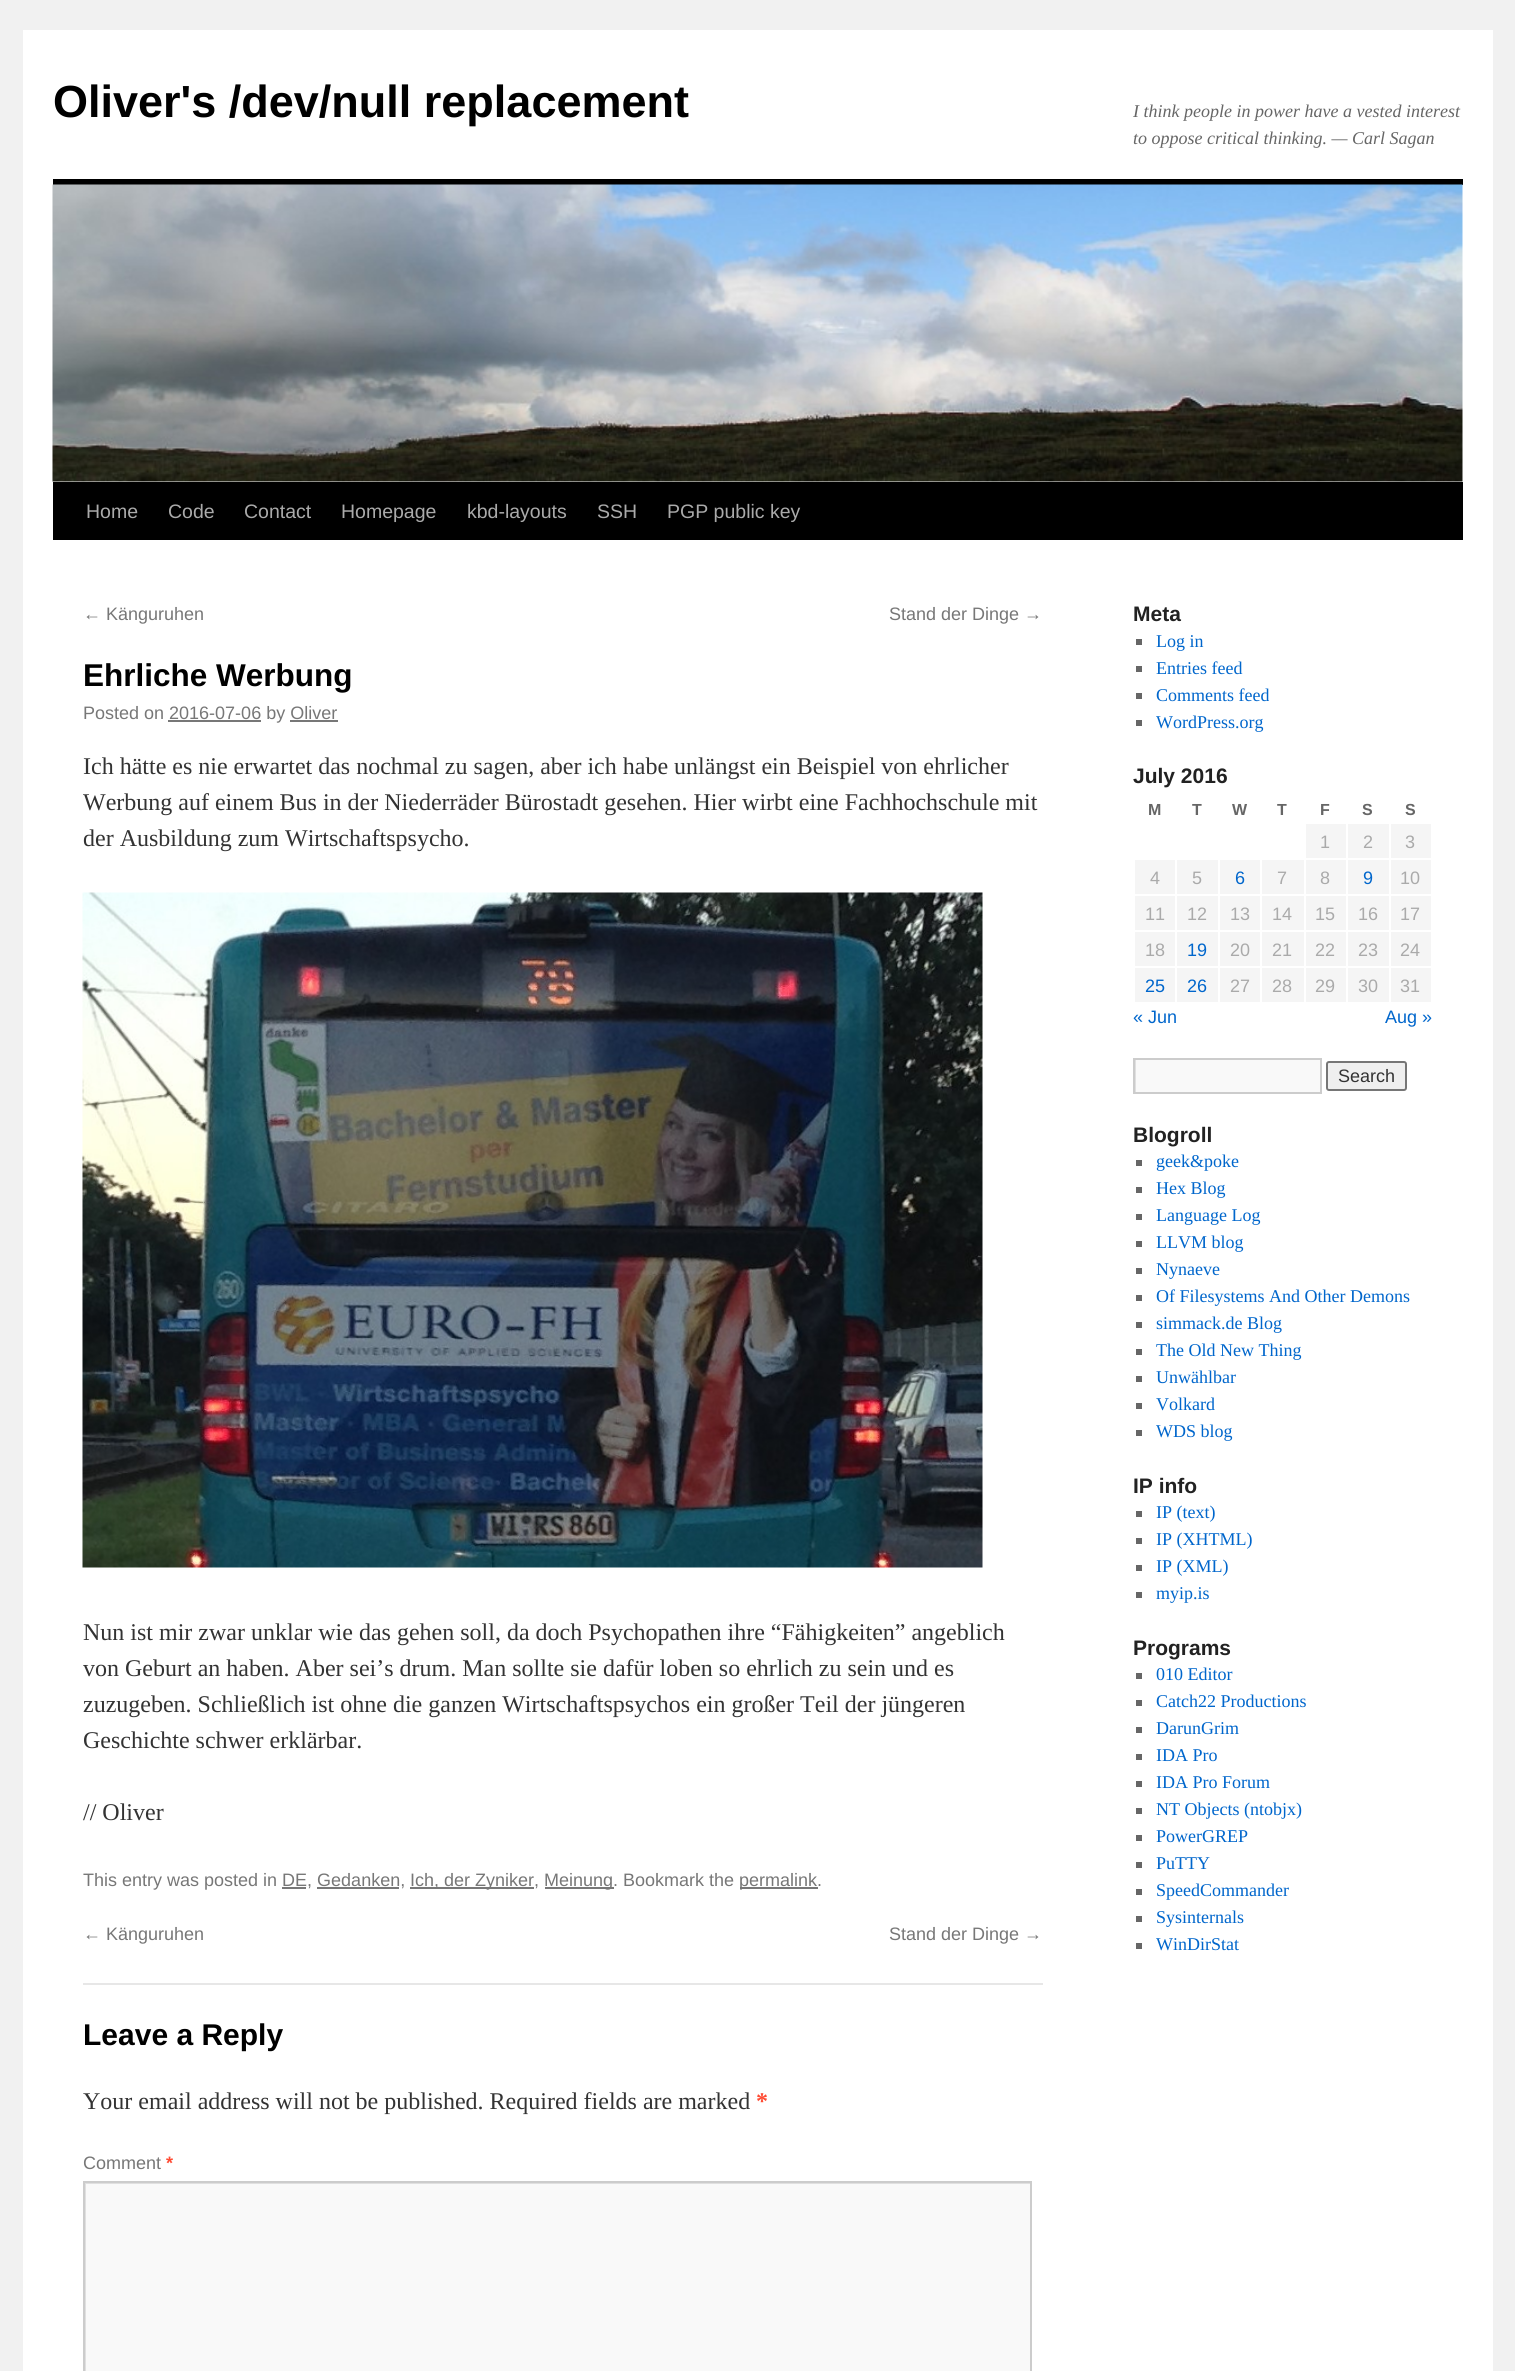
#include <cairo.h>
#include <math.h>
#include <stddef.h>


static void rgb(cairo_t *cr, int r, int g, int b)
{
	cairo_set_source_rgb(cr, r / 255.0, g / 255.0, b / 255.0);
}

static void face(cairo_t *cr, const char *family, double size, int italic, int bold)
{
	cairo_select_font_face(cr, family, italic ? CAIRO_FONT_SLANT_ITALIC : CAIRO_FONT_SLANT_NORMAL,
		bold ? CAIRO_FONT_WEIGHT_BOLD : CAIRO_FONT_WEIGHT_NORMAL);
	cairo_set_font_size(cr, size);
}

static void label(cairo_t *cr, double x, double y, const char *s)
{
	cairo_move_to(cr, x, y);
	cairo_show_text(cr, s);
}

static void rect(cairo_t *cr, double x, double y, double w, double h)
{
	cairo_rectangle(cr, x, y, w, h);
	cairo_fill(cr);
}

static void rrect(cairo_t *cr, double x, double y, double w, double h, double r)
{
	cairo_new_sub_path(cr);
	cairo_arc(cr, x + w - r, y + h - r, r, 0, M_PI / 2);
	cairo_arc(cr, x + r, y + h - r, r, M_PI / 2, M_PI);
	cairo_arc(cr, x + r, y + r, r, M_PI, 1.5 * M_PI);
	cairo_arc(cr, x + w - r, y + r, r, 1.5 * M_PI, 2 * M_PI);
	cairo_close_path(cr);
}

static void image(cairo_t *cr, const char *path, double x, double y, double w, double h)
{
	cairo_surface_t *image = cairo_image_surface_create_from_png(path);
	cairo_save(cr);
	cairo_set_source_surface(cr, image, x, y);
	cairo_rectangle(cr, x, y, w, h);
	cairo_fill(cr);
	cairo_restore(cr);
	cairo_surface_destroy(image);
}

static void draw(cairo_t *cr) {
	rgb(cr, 241, 241, 241);
	cairo_paint(cr);
	rgb(cr, 255, 255, 255);
	rect(cr, 23, 30, 1470, 2341);
	face(cr, "Liberation Sans", 45, 0, 1);
	rgb(cr, 0, 0, 0);
	label(cr, 53, 117, "Oliver's /dev/null replacement");
	face(cr, "Liberation Serif", 18, 1, 0);
	rgb(cr, 102, 102, 102);
	label(cr, 1133, 117, "I think people in power have a vested interest");
	label(cr, 1133, 144, "to oppose critical thinking. — Carl Sagan");
	rgb(cr, 0, 0, 0);
	rect(cr, 53, 179, 1410, 6);
	rect(cr, 53, 482, 1410, 58);
	image(cr, "image0.png", 52, 184, 1411, 298);
	face(cr, "Liberation Sans", 19.5, 0, 0);
	rgb(cr, 170, 170, 170);
	label(cr, 86, 518, "Home");
	label(cr, 168, 518, "Code");
	label(cr, 244, 518, "Contact");
	label(cr, 341, 518, "Homepage");
	label(cr, 467, 518, "kbd-layouts");
	label(cr, 597, 518, "SSH");
	label(cr, 667, 518, "PGP public key");
	face(cr, "Liberation Sans", 18, 0, 0);
	rgb(cr, 119, 119, 119);
	label(cr, 83, 620, "← Känguruhen");
	label(cr, 889, 620, "Stand der Dinge →");
	face(cr, "Liberation Sans", 31.5, 0, 1);
	rgb(cr, 0, 0, 0);
	label(cr, 83, 686, "Ehrliche Werbung");
	face(cr, "Liberation Sans", 18, 0, 0);
	rgb(cr, 119, 119, 119);
	label(cr, 83, 719, "Posted on 2016-07-06 by Oliver");
	rect(cr, 168, 720, 93, 2);
	rect(cr, 290, 720, 48, 2);
	face(cr, "Liberation Serif", 24, 0, 0);
	rgb(cr, 51, 51, 51);
	label(cr, 83, 774, "Ich hätte es nie erwartet das nochmal zu sagen, aber ich habe unlängst ein Beispiel von ehrlicher");
	label(cr, 83, 810, "Werbung auf einem Bus in der Niederräder Bürostadt gesehen. Hier wirbt eine Fachhochschule mit");
	label(cr, 83, 846, "der Ausbildung zum Wirtschaftspsycho.");
	image(cr, "image1.png", 82, 892, 901, 676);
	label(cr, 83, 1640, "Nun ist mir zwar unklar wie das gehen soll, da doch Psychopathen ihre “Fähigkeiten” angeblich");
	label(cr, 83, 1676, "von Geburt an haben. Aber sei’s drum. Man sollte sie dafür loben so ehrlich zu sein und es");
	label(cr, 83, 1712, "zuzugeben. Schließlich ist ohne die ganzen Wirtschaftspsychos ein großer Teil der jüngeren");
	label(cr, 83, 1748, "Geschichte schwer erklärbar.");
	label(cr, 83, 1820, "// Oliver");
	face(cr, "Liberation Sans", 18, 0, 0);
	rgb(cr, 119, 119, 119);
	label(cr, 83, 1886, "This entry was posted in DE, Gedanken,");
	rect(cr, 410, 1887, 124, 2);
	label(cr, 410, 1886, "Ich, der Zyniker,");
	rect(cr, 545, 1887, 69, 2);
	label(cr, 544, 1886, "Meinung. Bookmark the");
	rect(cr, 740, 1887, 78, 2);
	label(cr, 739, 1886, "permalink.");
	rect(cr, 282, 1887, 24, 2);
	rect(cr, 317, 1887, 82, 2);
	label(cr, 83, 1940, "← Känguruhen");
	label(cr, 889, 1940, "Stand der Dinge →");
	rgb(cr, 231, 231, 231);
	rect(cr, 83, 1983, 960, 2);
	face(cr, "Liberation Sans", 30, 0, 1);
	rgb(cr, 0, 0, 0);
	label(cr, 83, 2045, "Leave a Reply");
	face(cr, "Liberation Serif", 24, 0, 0);
	rgb(cr, 51, 51, 51);
	label(cr, 83, 2109, "Your email address will not be published. Required fields are marked");
	face(cr, "Liberation Serif", 24, 0, 1);
	rgb(cr, 255, 75, 51);
	label(cr, 756, 2109, "*");
	face(cr, "Liberation Sans", 18, 0, 0);
	rgb(cr, 119, 119, 119);
	label(cr, 83, 2169, "Comment");
	face(cr, "Liberation Sans", 18, 0, 1);
	rgb(cr, 255, 75, 51);
	label(cr, 166, 2169, "*");
	rgb(cr, 249, 249, 249);
	rect(cr, 86, 2184, 944, 187);
	cairo_save(cr);
	cairo_rectangle(cr, 84, 2183, 947, 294);
	cairo_clip(cr);
	rgb(cr, 224, 224, 224);
	cairo_set_fill_rule(cr, CAIRO_FILL_RULE_EVEN_ODD);
	cairo_new_path(cr);
	cairo_move_to(cr, -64, 2034);
	cairo_line_to(cr, 1179, 2034);
	cairo_line_to(cr, 1179, 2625);
	cairo_line_to(cr, -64, 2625);
	cairo_close_path(cr);
	cairo_move_to(cr, 86, 2184);
	cairo_line_to(cr, 1032, 2184);
	cairo_line_to(cr, 1032, 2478);
	cairo_line_to(cr, 86, 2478);
	cairo_close_path(cr);
	cairo_fill(cr);
	cairo_restore(cr);
	cairo_rectangle(cr, 84, 2182, 947, 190);
	rgb(cr, 204, 204, 204);
	cairo_stroke(cr);
	face(cr, "Liberation Sans", 21, 0, 1);
	rgb(cr, 34, 34, 34);
	label(cr, 1133, 621, "Meta");
	rgb(cr, 102, 102, 102);
	rect(cr, 1136, 639, 6, 6);
	face(cr, "Liberation Serif", 18, 0, 0);
	rgb(cr, 0, 102, 204);
	label(cr, 1156, 647, "Log in");
	rgb(cr, 102, 102, 102);
	rect(cr, 1136, 666, 6, 6);
	rgb(cr, 0, 102, 204);
	label(cr, 1156, 674, "Entries feed");
	rgb(cr, 102, 102, 102);
	rect(cr, 1136, 693, 6, 6);
	rgb(cr, 0, 102, 204);
	label(cr, 1156, 701, "Comments feed");
	rgb(cr, 102, 102, 102);
	rect(cr, 1136, 720, 6, 6);
	rgb(cr, 0, 102, 204);
	label(cr, 1156, 728, "WordPress.org");
	face(cr, "Liberation Sans", 21, 0, 1);
	rgb(cr, 34, 34, 34);
	label(cr, 1133, 783, "July 2016");
	face(cr, "Liberation Sans", 16, 0, 1);
	rgb(cr, 102, 102, 102);
	label(cr, 1148, 815, "M");
	label(cr, 1192, 815, "T");
	label(cr, 1232, 815, "W");
	label(cr, 1277, 815, "T");
	label(cr, 1320, 815, "F");
	label(cr, 1362, 815, "S");
	label(cr, 1405, 815, "S");
	rgb(cr, 245, 245, 245);
	rect(cr, 1306, 824, 40, 34);
	face(cr, "Liberation Sans", 18, 0, 0);
	rgb(cr, 170, 170, 170);
	label(cr, 1320, 848, "1");
	rgb(cr, 245, 245, 245);
	rect(cr, 1348, 824, 41, 34);
	rgb(cr, 170, 170, 170);
	label(cr, 1363, 848, "2");
	rgb(cr, 245, 245, 245);
	rect(cr, 1391, 824, 40, 34);
	rgb(cr, 170, 170, 170);
	label(cr, 1405, 848, "3");
	rgb(cr, 245, 245, 245);
	rect(cr, 1135, 860, 40, 34);
	rgb(cr, 170, 170, 170);
	label(cr, 1150, 884, "4");
	rgb(cr, 245, 245, 245);
	rect(cr, 1177, 860, 41, 34);
	rgb(cr, 170, 170, 170);
	label(cr, 1192, 884, "5");
	rgb(cr, 245, 245, 245);
	rect(cr, 1220, 860, 40, 34);
	rgb(cr, 0, 102, 204);
	label(cr, 1235, 884, "6");
	rgb(cr, 245, 245, 245);
	rect(cr, 1262, 860, 42, 34);
	rgb(cr, 170, 170, 170);
	label(cr, 1277, 884, "7");
	rgb(cr, 245, 245, 245);
	rect(cr, 1306, 860, 40, 34);
	rgb(cr, 170, 170, 170);
	label(cr, 1320, 884, "8");
	rgb(cr, 245, 245, 245);
	rect(cr, 1348, 860, 41, 34);
	rgb(cr, 0, 102, 204);
	label(cr, 1363, 884, "9");
	rgb(cr, 245, 245, 245);
	rect(cr, 1391, 860, 40, 34);
	rgb(cr, 170, 170, 170);
	label(cr, 1400, 884, "10");
	rgb(cr, 245, 245, 245);
	rect(cr, 1135, 896, 40, 34);
	rgb(cr, 170, 170, 170);
	label(cr, 1145, 920, "11");
	rgb(cr, 245, 245, 245);
	rect(cr, 1177, 896, 41, 34);
	rgb(cr, 170, 170, 170);
	label(cr, 1187, 920, "12");
	rgb(cr, 245, 245, 245);
	rect(cr, 1220, 896, 40, 34);
	rgb(cr, 170, 170, 170);
	label(cr, 1230, 920, "13");
	rgb(cr, 245, 245, 245);
	rect(cr, 1262, 896, 42, 34);
	rgb(cr, 170, 170, 170);
	label(cr, 1272, 920, "14");
	rgb(cr, 245, 245, 245);
	rect(cr, 1306, 896, 40, 34);
	rgb(cr, 170, 170, 170);
	label(cr, 1315, 920, "15");
	rgb(cr, 245, 245, 245);
	rect(cr, 1348, 896, 41, 34);
	rgb(cr, 170, 170, 170);
	label(cr, 1358, 920, "16");
	rgb(cr, 245, 245, 245);
	rect(cr, 1391, 896, 40, 34);
	rgb(cr, 170, 170, 170);
	label(cr, 1400, 920, "17");
	rgb(cr, 245, 245, 245);
	rect(cr, 1135, 932, 40, 34);
	rgb(cr, 170, 170, 170);
	label(cr, 1145, 956, "18");
	rgb(cr, 245, 245, 245);
	rect(cr, 1177, 932, 41, 34);
	rgb(cr, 0, 102, 204);
	label(cr, 1187, 956, "19");
	rgb(cr, 245, 245, 245);
	rect(cr, 1220, 932, 40, 34);
	rgb(cr, 170, 170, 170);
	label(cr, 1230, 956, "20");
	rgb(cr, 245, 245, 245);
	rect(cr, 1262, 932, 42, 34);
	rgb(cr, 170, 170, 170);
	label(cr, 1272, 956, "21");
	rgb(cr, 245, 245, 245);
	rect(cr, 1306, 932, 40, 34);
	rgb(cr, 170, 170, 170);
	label(cr, 1315, 956, "22");
	rgb(cr, 245, 245, 245);
	rect(cr, 1348, 932, 41, 34);
	rgb(cr, 170, 170, 170);
	label(cr, 1358, 956, "23");
	rgb(cr, 245, 245, 245);
	rect(cr, 1391, 932, 40, 34);
	rgb(cr, 170, 170, 170);
	label(cr, 1400, 956, "24");
	rgb(cr, 245, 245, 245);
	rect(cr, 1135, 968, 40, 34);
	rgb(cr, 0, 102, 204);
	label(cr, 1145, 992, "25");
	rgb(cr, 245, 245, 245);
	rect(cr, 1177, 968, 41, 34);
	rgb(cr, 0, 102, 204);
	label(cr, 1187, 992, "26");
	rgb(cr, 245, 245, 245);
	rect(cr, 1220, 968, 40, 34);
	rgb(cr, 170, 170, 170);
	label(cr, 1230, 992, "27");
	rgb(cr, 245, 245, 245);
	rect(cr, 1262, 968, 42, 34);
	rgb(cr, 170, 170, 170);
	label(cr, 1272, 992, "28");
	rgb(cr, 245, 245, 245);
	rect(cr, 1306, 968, 40, 34);
	rgb(cr, 170, 170, 170);
	label(cr, 1315, 992, "29");
	rgb(cr, 245, 245, 245);
	rect(cr, 1348, 968, 41, 34);
	rgb(cr, 170, 170, 170);
	label(cr, 1358, 992, "30");
	rgb(cr, 245, 245, 245);
	rect(cr, 1391, 968, 40, 34);
	rgb(cr, 170, 170, 170);
	label(cr, 1400, 992, "31");
	rgb(cr, 0, 102, 204);
	label(cr, 1133, 1023, "« Jun");
	label(cr, 1385, 1023, "Aug »");
	rgb(cr, 249, 249, 249);
	rect(cr, 1136, 1060, 184, 32);
	cairo_save(cr);
	cairo_rectangle(cr, 1134, 1059, 186, 33);
	cairo_clip(cr);
	rgb(cr, 224, 224, 224);
	cairo_set_fill_rule(cr, CAIRO_FILL_RULE_EVEN_ODD);
	cairo_new_path(cr);
	cairo_move_to(cr, 986, 910);
	cairo_line_to(cr, 1468, 910);
	cairo_line_to(cr, 1468, 1240);
	cairo_line_to(cr, 986, 1240);
	cairo_close_path(cr);
	cairo_move_to(cr, 1136, 1060);
	cairo_line_to(cr, 1322, 1060);
	cairo_line_to(cr, 1322, 1094);
	cairo_line_to(cr, 1136, 1094);
	cairo_close_path(cr);
	cairo_fill(cr);
	cairo_restore(cr);
	cairo_rectangle(cr, 1134, 1059, 187, 34);
	rgb(cr, 204, 204, 204);
	cairo_stroke(cr);
	rgb(cr, 239, 239, 239);
	rrect(cr, 1327, 1062, 79, 28, 2);
	cairo_fill_preserve(cr);
	rgb(cr, 118, 118, 118);
	cairo_stroke(cr);
	rgb(cr, 51, 51, 51);
	label(cr, 1338, 1082, "Search");
	face(cr, "Liberation Sans", 21, 0, 1);
	rgb(cr, 34, 34, 34);
	label(cr, 1133, 1142, "Blogroll");
	rgb(cr, 102, 102, 102);
	rect(cr, 1136, 1160, 6, 6);
	face(cr, "Liberation Serif", 18, 0, 0);
	rgb(cr, 0, 102, 204);
	label(cr, 1156, 1167, "geek&poke");
	rgb(cr, 102, 102, 102);
	rect(cr, 1136, 1187, 6, 6);
	rgb(cr, 0, 102, 204);
	label(cr, 1156, 1194, "Hex Blog");
	rgb(cr, 102, 102, 102);
	rect(cr, 1136, 1214, 6, 6);
	rgb(cr, 0, 102, 204);
	label(cr, 1156, 1221, "Language Log");
	rgb(cr, 102, 102, 102);
	rect(cr, 1136, 1241, 6, 6);
	rgb(cr, 0, 102, 204);
	label(cr, 1156, 1248, "LLVM blog");
	rgb(cr, 102, 102, 102);
	rect(cr, 1136, 1268, 6, 6);
	rgb(cr, 0, 102, 204);
	label(cr, 1156, 1275, "Nynaeve");
	rgb(cr, 102, 102, 102);
	rect(cr, 1136, 1295, 6, 6);
	rgb(cr, 0, 102, 204);
	label(cr, 1156, 1302, "Of Filesystems And Other Demons");
	rgb(cr, 102, 102, 102);
	rect(cr, 1136, 1322, 6, 6);
	rgb(cr, 0, 102, 204);
	label(cr, 1156, 1329, "simmack.de Blog");
	rgb(cr, 102, 102, 102);
	rect(cr, 1136, 1349, 6, 6);
	rgb(cr, 0, 102, 204);
	label(cr, 1156, 1356, "The Old New Thing");
	rgb(cr, 102, 102, 102);
	rect(cr, 1136, 1376, 6, 6);
	rgb(cr, 0, 102, 204);
	label(cr, 1156, 1383, "Unwählbar");
	rgb(cr, 102, 102, 102);
	rect(cr, 1136, 1403, 6, 6);
	rgb(cr, 0, 102, 204);
	label(cr, 1156, 1410, "Volkard");
	rgb(cr, 102, 102, 102);
	rect(cr, 1136, 1430, 6, 6);
	rgb(cr, 0, 102, 204);
	label(cr, 1156, 1437, "WDS blog");
	face(cr, "Liberation Sans", 21, 0, 1);
	rgb(cr, 34, 34, 34);
	label(cr, 1133, 1493, "IP info");
	rgb(cr, 102, 102, 102);
	rect(cr, 1136, 1511, 6, 6);
	face(cr, "Liberation Serif", 18, 0, 0);
	rgb(cr, 0, 102, 204);
	label(cr, 1156, 1518, "IP (text)");
	rgb(cr, 102, 102, 102);
	rect(cr, 1136, 1538, 6, 6);
	rgb(cr, 0, 102, 204);
	label(cr, 1156, 1545, "IP (XHTML)");
	rgb(cr, 102, 102, 102);
	rect(cr, 1136, 1565, 6, 6);
	rgb(cr, 0, 102, 204);
	label(cr, 1156, 1572, "IP (XML)");
	rgb(cr, 102, 102, 102);
	rect(cr, 1136, 1592, 6, 6);
	rgb(cr, 0, 102, 204);
	label(cr, 1156, 1599, "myip.is");
	face(cr, "Liberation Sans", 21, 0, 1);
	rgb(cr, 34, 34, 34);
	label(cr, 1133, 1655, "Programs");
	rgb(cr, 102, 102, 102);
	rect(cr, 1136, 1673, 6, 6);
	face(cr, "Liberation Serif", 18, 0, 0);
	rgb(cr, 0, 102, 204);
	label(cr, 1156, 1680, "010 Editor");
	rgb(cr, 102, 102, 102);
	rect(cr, 1136, 1700, 6, 6);
	rgb(cr, 0, 102, 204);
	label(cr, 1156, 1707, "Catch22 Productions");
	rgb(cr, 102, 102, 102);
	rect(cr, 1136, 1727, 6, 6);
	rgb(cr, 0, 102, 204);
	label(cr, 1156, 1734, "DarunGrim");
	rgb(cr, 102, 102, 102);
	rect(cr, 1136, 1754, 6, 6);
	rgb(cr, 0, 102, 204);
	label(cr, 1156, 1761, "IDA Pro");
	rgb(cr, 102, 102, 102);
	rect(cr, 1136, 1781, 6, 6);
	rgb(cr, 0, 102, 204);
	label(cr, 1156, 1788, "IDA Pro Forum");
	rgb(cr, 102, 102, 102);
	rect(cr, 1136, 1808, 6, 6);
	rgb(cr, 0, 102, 204);
	label(cr, 1156, 1815, "NT Objects (ntobjx)");
	rgb(cr, 102, 102, 102);
	rect(cr, 1136, 1835, 6, 6);
	rgb(cr, 0, 102, 204);
	label(cr, 1156, 1842, "PowerGREP");
	rgb(cr, 102, 102, 102);
	rect(cr, 1136, 1862, 6, 6);
	rgb(cr, 0, 102, 204);
	label(cr, 1156, 1869, "PuTTY");
	rgb(cr, 102, 102, 102);
	rect(cr, 1136, 1889, 6, 6);
	rgb(cr, 0, 102, 204);
	label(cr, 1156, 1896, "SpeedCommander");
	rgb(cr, 102, 102, 102);
	rect(cr, 1136, 1916, 6, 6);
	rgb(cr, 0, 102, 204);
	label(cr, 1156, 1923, "Sysinternals");
	rgb(cr, 102, 102, 102);
	rect(cr, 1136, 1943, 6, 6);
	rgb(cr, 0, 102, 204);
	label(cr, 1156, 1950, "WinDirStat");
}

int main(void) {
	cairo_surface_t *surface = cairo_image_surface_create(CAIRO_FORMAT_RGB24, 1515, 2371);
	cairo_t *cr = cairo_create(surface);
	cairo_font_options_t *options = cairo_font_options_create();
	cairo_font_options_set_hint_metrics(options, CAIRO_HINT_METRICS_OFF);
	cairo_font_options_set_hint_style(options, CAIRO_HINT_STYLE_NONE);
	cairo_set_font_options(cr, options);
	cairo_set_miter_limit(cr, 4);
	draw(cr);
	cairo_surface_write_to_png(surface, "render.png");
	cairo_font_options_destroy(options);
	cairo_destroy(cr);
	cairo_surface_destroy(surface);
	return 0;
}
